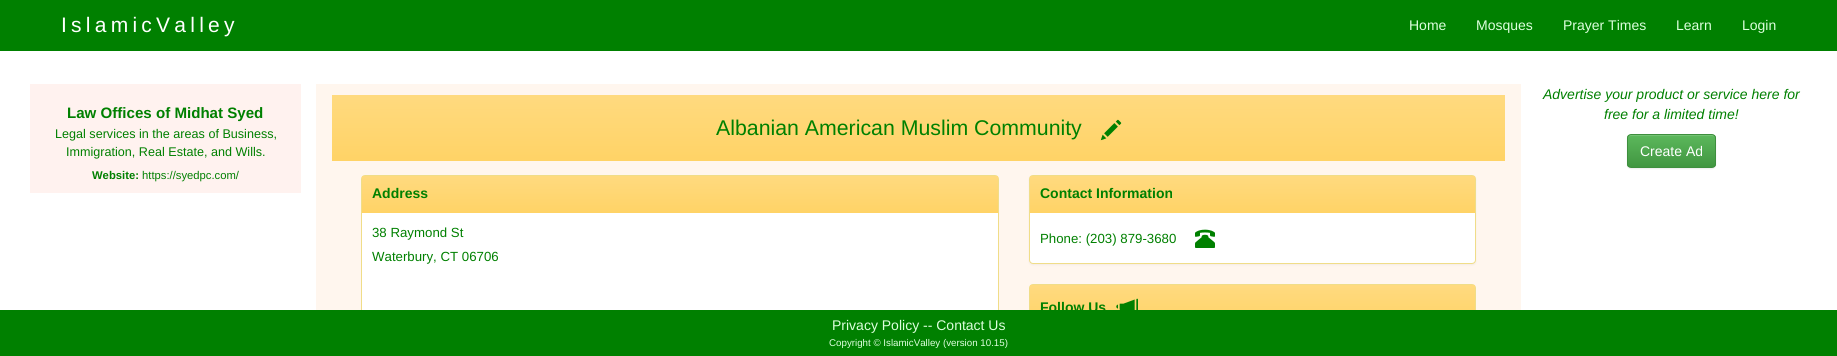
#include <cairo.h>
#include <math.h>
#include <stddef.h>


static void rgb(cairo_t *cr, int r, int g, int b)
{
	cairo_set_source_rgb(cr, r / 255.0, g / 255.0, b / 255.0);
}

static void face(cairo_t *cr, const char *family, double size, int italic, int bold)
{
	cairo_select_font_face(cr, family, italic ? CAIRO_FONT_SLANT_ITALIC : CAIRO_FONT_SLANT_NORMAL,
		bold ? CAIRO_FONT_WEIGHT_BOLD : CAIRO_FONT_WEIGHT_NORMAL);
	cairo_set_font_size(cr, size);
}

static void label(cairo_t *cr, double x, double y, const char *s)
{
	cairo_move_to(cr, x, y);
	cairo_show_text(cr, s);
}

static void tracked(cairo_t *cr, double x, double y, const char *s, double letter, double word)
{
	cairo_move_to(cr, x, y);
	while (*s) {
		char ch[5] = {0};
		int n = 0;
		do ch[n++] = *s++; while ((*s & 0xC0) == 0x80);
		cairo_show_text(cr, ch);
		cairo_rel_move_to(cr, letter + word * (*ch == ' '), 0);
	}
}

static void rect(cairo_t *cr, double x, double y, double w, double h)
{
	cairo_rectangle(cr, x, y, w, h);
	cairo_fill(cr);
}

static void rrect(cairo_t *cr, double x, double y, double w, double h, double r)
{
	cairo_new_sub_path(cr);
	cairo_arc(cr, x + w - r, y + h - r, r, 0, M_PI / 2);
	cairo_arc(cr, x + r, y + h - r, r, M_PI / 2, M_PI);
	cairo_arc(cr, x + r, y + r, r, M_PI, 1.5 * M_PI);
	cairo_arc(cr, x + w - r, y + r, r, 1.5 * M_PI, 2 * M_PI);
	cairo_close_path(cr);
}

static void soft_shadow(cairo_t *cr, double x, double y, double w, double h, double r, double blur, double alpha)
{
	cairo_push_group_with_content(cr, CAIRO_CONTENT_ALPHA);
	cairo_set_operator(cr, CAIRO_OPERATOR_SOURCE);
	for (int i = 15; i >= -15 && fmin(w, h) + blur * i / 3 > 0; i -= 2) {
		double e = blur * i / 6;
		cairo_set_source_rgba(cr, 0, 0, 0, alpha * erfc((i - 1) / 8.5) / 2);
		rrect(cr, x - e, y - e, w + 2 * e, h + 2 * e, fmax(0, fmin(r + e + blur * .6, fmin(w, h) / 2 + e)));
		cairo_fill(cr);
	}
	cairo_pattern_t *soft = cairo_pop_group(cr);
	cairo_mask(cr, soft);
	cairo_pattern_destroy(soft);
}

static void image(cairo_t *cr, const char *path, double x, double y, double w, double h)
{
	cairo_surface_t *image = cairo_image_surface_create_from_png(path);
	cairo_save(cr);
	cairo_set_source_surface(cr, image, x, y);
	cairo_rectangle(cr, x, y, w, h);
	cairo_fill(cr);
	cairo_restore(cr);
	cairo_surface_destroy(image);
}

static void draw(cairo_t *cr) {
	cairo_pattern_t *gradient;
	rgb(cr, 255, 255, 255);
	cairo_paint(cr);
	rgb(cr, 0, 128, 0);
	rect(cr, 0, 0, 1837, 51);
	face(cr, "Liberation Sans", 21, 0, 0);
	rgb(cr, 255, 255, 255);
	tracked(cr, 61, 32, "IslamicValley", 4.25, 0);
	face(cr, "Liberation Sans", 14, 0, 0);
	rgb(cr, 221, 255, 221);
	label(cr, 1409, 30, "Home");
	label(cr, 1476, 30, "Mosques");
	label(cr, 1563, 30, "Prayer Times");
	label(cr, 1676, 30, "Learn");
	label(cr, 1742, 30, "Login");
	rgb(cr, 255, 242, 239);
	rect(cr, 30, 84, 271, 109);
	face(cr, "Liberation Sans", 15.1, 0, 1);
	rgb(cr, 0, 128, 0);
	label(cr, 67, 118, "Law Offices of Midhat Syed");
	face(cr, "Liberation Sans", 12.6, 0, 0);
	label(cr, 55, 138, "Legal services in the areas of Business,");
	label(cr, 66, 156, "Immigration, Real Estate, and Wills.");
	face(cr, "Liberation Sans", 11.25, 0, 1);
	label(cr, 92, 179, "Website:");
	face(cr, "Liberation Sans", 11.25, 0, 0);
	label(cr, 142, 179, "https://syedpc.com/");
	rgb(cr, 255, 246, 238);
	rect(cr, 316, 84, 1205, 226);
	gradient = cairo_pattern_create_linear(919, 95, 919, 161);
	cairo_pattern_add_color_stop_rgba(gradient, 0, 1, 0.855, 0.498, 1);
	cairo_pattern_add_color_stop_rgba(gradient, 1, 1, 0.827, 0.4, 1);
	cairo_set_source(cr, gradient);
	cairo_pattern_destroy(gradient);
	rect(cr, 332, 95, 1173, 66);
	face(cr, "Liberation Sans", 21.3, 0, 0);
	rgb(cr, 0, 128, 0);
	label(cr, 716, 135, "Albanian American Muslim Community");
	image(cr, "image0.png", 1100, 119, 22, 22);
	rgb(cr, 255, 255, 255);
	rrect(cr, 361.5, 175.5, 637, 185, 3.5);
	cairo_fill_preserve(cr);
	rgb(cr, 240, 221, 136);
	cairo_set_line_width(cr, 1);
	cairo_stroke(cr);
	gradient = cairo_pattern_create_linear(680, 176, 680, 213);
	cairo_pattern_add_color_stop_rgba(gradient, 0, 1, 0.855, 0.498, 1);
	cairo_pattern_add_color_stop_rgba(gradient, 1, 1, 0.827, 0.4, 1);
	cairo_set_source(cr, gradient);
	cairo_pattern_destroy(gradient);
	rect(cr, 362, 176, 636, 37);
	face(cr, "Liberation Sans", 14, 0, 1);
	rgb(cr, 0, 128, 0);
	label(cr, 372, 198, "Address");
	face(cr, "Liberation Sans", 13.25, 0, 0);
	label(cr, 372, 237, "38 Raymond St");
	label(cr, 372, 261, "Waterbury, CT 06706");
	rgb(cr, 0, 0, 0);
	soft_shadow(cr, 1029, 176, 447, 89, 4, 1, 0.05);
	rgb(cr, 255, 255, 255);
	rrect(cr, 1029.5, 175.5, 446, 88, 3.5);
	cairo_fill_preserve(cr);
	rgb(cr, 240, 221, 136);
	cairo_stroke(cr);
	gradient = cairo_pattern_create_linear(1253, 176, 1253, 213);
	cairo_pattern_add_color_stop_rgba(gradient, 0, 1, 0.855, 0.498, 1);
	cairo_pattern_add_color_stop_rgba(gradient, 1, 1, 0.827, 0.4, 1);
	cairo_set_source(cr, gradient);
	cairo_pattern_destroy(gradient);
	rect(cr, 1030, 176, 445, 37);
	face(cr, "Liberation Sans", 14, 0, 1);
	rgb(cr, 0, 128, 0);
	label(cr, 1040, 198, "Contact Information");
	face(cr, "Liberation Sans", 13.25, 0, 0);
	label(cr, 1040, 243, "Phone: (203) 879-3680");
	image(cr, "image1.png", 1195, 229, 20, 19);
	rrect(cr, 1029.5, 284.5, 446, 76, 3.5);
	rgb(cr, 240, 221, 136);
	cairo_stroke(cr);
	gradient = cairo_pattern_create_linear(1253, 285, 1253, 327);
	cairo_pattern_add_color_stop_rgba(gradient, 0, 1, 0.855, 0.498, 1);
	cairo_pattern_add_color_stop_rgba(gradient, 1, 1, 0.827, 0.4, 1);
	cairo_set_source(cr, gradient);
	cairo_pattern_destroy(gradient);
	rect(cr, 1030, 285, 445, 25);
	face(cr, "Liberation Sans", 14, 0, 1);
	rgb(cr, 0, 128, 0);
	label(cr, 1040, 312, "Follow Us");
	image(cr, "image2.png", 1116, 298, 22, 12);
	face(cr, "Liberation Sans", 14, 1, 0);
	label(cr, 1543, 99, "Advertise your product or service here for");
	label(cr, 1604, 119, "free for a limited time!");
	rgb(cr, 0, 0, 0);
	soft_shadow(cr, 1627, 135, 89, 34, 4, 0.5, 0.07);
	cairo_save(cr);
	rrect(cr, 1627, 134, 89, 34, 4);
	cairo_clip(cr);
	gradient = cairo_pattern_create_linear(1672, 135, 1672, 167);
	cairo_pattern_add_color_stop_rgba(gradient, 0, 0.361, 0.722, 0.361, 1);
	cairo_pattern_add_color_stop_rgba(gradient, 1, 0.255, 0.588, 0.255, 1);
	cairo_set_source(cr, gradient);
	cairo_pattern_destroy(gradient);
	rect(cr, 1627, 135, 89, 32);
	cairo_restore(cr);
	rgb(cr, 116, 194, 116);
	cairo_new_path(cr);
	cairo_move_to(cr, 1631, 136);
	cairo_line_to(cr, 1712, 136);
	cairo_curve_to(cr, 1714, 136, 1715, 137, 1715, 139);
	cairo_curve_to(cr, 1715, 131, 1702, 135, 1698, 135);
	cairo_line_to(cr, 1644, 135);
	cairo_curve_to(cr, 1641, 135, 1628, 131, 1628, 139);
	cairo_curve_to(cr, 1628, 137, 1629, 136, 1631, 136);
	cairo_close_path(cr);
	cairo_fill(cr);
	rrect(cr, 1627.5, 134.5, 88, 33, 3.5);
	rgb(cr, 62, 143, 62);
	cairo_stroke(cr);
	face(cr, "Liberation Sans", 14, 0, 0);
	rgb(cr, 255, 255, 255);
	label(cr, 1640, 156, "Create Ad");
	rgb(cr, 0, 128, 0);
	rect(cr, 0, 310, 1837, 46);
	rgb(cr, 221, 255, 221);
	label(cr, 832, 330, "Privacy Policy -- Contact Us");
	face(cr, "Liberation Sans", 9.75, 0, 0);
	label(cr, 829, 346, "Copyright © IslamicValley (version 10.15)");
}

int main(void) {
	cairo_surface_t *surface = cairo_image_surface_create(CAIRO_FORMAT_RGB24, 1837, 356);
	cairo_t *cr = cairo_create(surface);
	cairo_font_options_t *options = cairo_font_options_create();
	cairo_font_options_set_hint_metrics(options, CAIRO_HINT_METRICS_OFF);
	cairo_font_options_set_hint_style(options, CAIRO_HINT_STYLE_NONE);
	cairo_set_font_options(cr, options);
	cairo_set_miter_limit(cr, 4);
	draw(cr);
	cairo_surface_write_to_png(surface, "render.png");
	cairo_font_options_destroy(options);
	cairo_destroy(cr);
	cairo_surface_destroy(surface);
	return 0;
}
